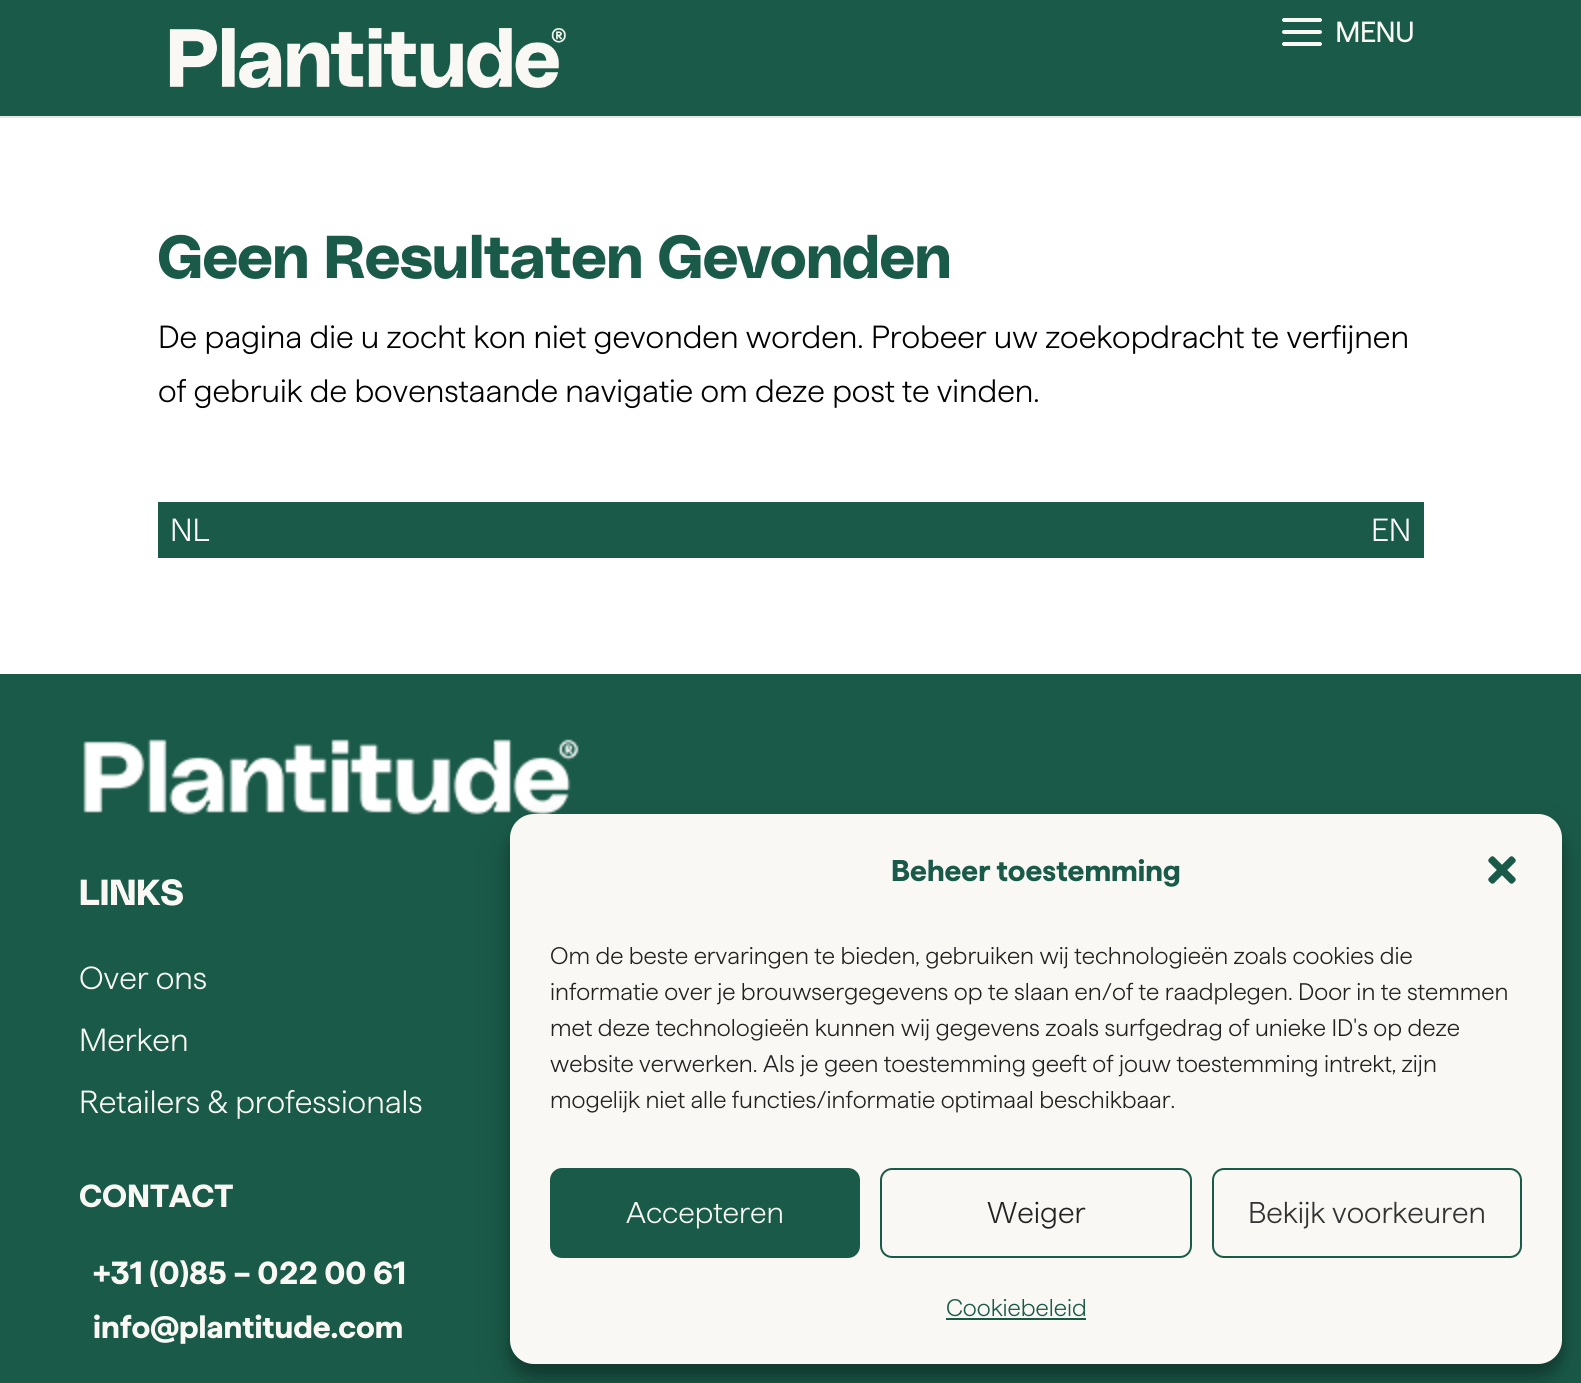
#include <cairo.h>
#include <math.h>
#include <stddef.h>


static void rgb(cairo_t *cr, int r, int g, int b)
{
	cairo_set_source_rgb(cr, r / 255.0, g / 255.0, b / 255.0);
}

static void face(cairo_t *cr, const char *family, double size, int italic, int bold)
{
	cairo_select_font_face(cr, family, italic ? CAIRO_FONT_SLANT_ITALIC : CAIRO_FONT_SLANT_NORMAL,
		bold ? CAIRO_FONT_WEIGHT_BOLD : CAIRO_FONT_WEIGHT_NORMAL);
	cairo_set_font_size(cr, size);
}

static void label(cairo_t *cr, double x, double y, const char *s)
{
	cairo_move_to(cr, x, y);
	cairo_show_text(cr, s);
}

static void rect(cairo_t *cr, double x, double y, double w, double h)
{
	cairo_rectangle(cr, x, y, w, h);
	cairo_fill(cr);
}

static void rrect(cairo_t *cr, double x, double y, double w, double h, double r)
{
	cairo_new_sub_path(cr);
	cairo_arc(cr, x + w - r, y + h - r, r, 0, M_PI / 2);
	cairo_arc(cr, x + r, y + h - r, r, M_PI / 2, M_PI);
	cairo_arc(cr, x + r, y + r, r, M_PI, 1.5 * M_PI);
	cairo_arc(cr, x + w - r, y + r, r, 1.5 * M_PI, 2 * M_PI);
	cairo_close_path(cr);
}

static void soft_shadow(cairo_t *cr, double x, double y, double w, double h, double r, double blur, double alpha)
{
	cairo_push_group_with_content(cr, CAIRO_CONTENT_ALPHA);
	cairo_set_operator(cr, CAIRO_OPERATOR_SOURCE);
	for (int i = 15; i >= -15 && fmin(w, h) + blur * i / 3 > 0; i -= 2) {
		double e = blur * i / 6;
		cairo_set_source_rgba(cr, 0, 0, 0, alpha * erfc((i - 1) / 8.5) / 2);
		rrect(cr, x - e, y - e, w + 2 * e, h + 2 * e, fmax(0, fmin(r + e + blur * .6, fmin(w, h) / 2 + e)));
		cairo_fill(cr);
	}
	cairo_pattern_t *soft = cairo_pop_group(cr);
	cairo_mask(cr, soft);
	cairo_pattern_destroy(soft);
}

static void image(cairo_t *cr, const char *path, double x, double y, double w, double h)
{
	cairo_surface_t *image = cairo_image_surface_create_from_png(path);
	cairo_save(cr);
	cairo_set_source_surface(cr, image, x, y);
	cairo_rectangle(cr, x, y, w, h);
	cairo_fill(cr);
	cairo_restore(cr);
	cairo_surface_destroy(image);
}

static void draw(cairo_t *cr) {
	rgb(cr, 255, 255, 255);
	cairo_paint(cr);
	rgb(cr, 230, 230, 230);
	rect(cr, 0, 116, 1581, 2);
	rgb(cr, 26, 90, 72);
	rect(cr, 0, 0, 1581, 116);
	image(cr, "image0.png", 169, 28, 397, 60);
	image(cr, "image1.png", 1282, 18, 40, 28);
	face(cr, "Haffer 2", 28, 0, 1);
	rgb(cr, 249, 248, 244);
	label(cr, 1335, 42, "MENU");
	face(cr, "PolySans", 60, 0, 1);
	rgb(cr, 26, 90, 72);
	label(cr, 158, 278, "Geen Resultaten Gevonden");
	face(cr, "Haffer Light", 32, 0, 0);
	rgb(cr, 0, 0, 0);
	label(cr, 158, 348, "De pagina die u zocht kon niet gevonden worden. Probeer uw zoekopdracht te verfijnen");
	label(cr, 158, 402, "of gebruik de bovenstaande navigatie om deze post te vinden.");
	rgb(cr, 26, 90, 72);
	rect(cr, 158, 502, 1266, 56);
	rgb(cr, 255, 255, 255);
	label(cr, 170, 541, "NL");
	label(cr, 1371, 541, "EN");
	rgb(cr, 26, 90, 72);
	rect(cr, 0, 674, 1581, 709);
	image(cr, "image2.png", 83, 739, 496, 76);
	face(cr, "PolySans", 36, 0, 1);
	rgb(cr, 249, 248, 244);
	label(cr, 79, 905, "LINKS");
	face(cr, "Haffer Light", 32, 0, 0);
	label(cr, 79, 989, "Over ons");
	label(cr, 79, 1051, "Merken");
	label(cr, 79, 1113, "Retailers & professionals");
	face(cr, "Haffer", 32, 0, 1);
	label(cr, 79, 1207, "CONTACT");
	label(cr, 93, 1284, "+31 (0)85 – 022 00 61");
	label(cr, 93, 1338, "info@plantitude.com");
	rgb(cr, 0, 0, 0);
	soft_shadow(cr, 510, 826, 1052, 550, 24, 6, 0.23);
	soft_shadow(cr, 510, 834, 1052, 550, 24, 20, 0.19);
	rgb(cr, 249, 248, 244);
	rrect(cr, 510, 814, 1052, 550, 24);
	cairo_fill(cr);
	face(cr, "Haffer", 30, 0, 1);
	rgb(cr, 26, 90, 72);
	label(cr, 891, 881, "Beheer toestemming");
	image(cr, "image3.png", 1488, 856, 28, 28);
	face(cr, "Haffer Light", 24, 0, 0);
	rgb(cr, 34, 34, 34);
	label(cr, 550, 964, "Om de beste ervaringen te bieden, gebruiken wij technologieën zoals cookies die");
	label(cr, 550, 1000, "informatie over je brouwsergegevens op te slaan en/of te raadplegen. Door in te stemmen");
	label(cr, 550, 1036, "met deze technologieën kunnen wij gegevens zoals surfgedrag of unieke ID's op deze");
	label(cr, 550, 1072, "website verwerken. Als je geen toestemming geeft of jouw toestemming intrekt, zijn");
	label(cr, 550, 1108, "mogelijk niet alle functies/informatie optimaal beschikbaar.");
	rgb(cr, 26, 90, 72);
	rrect(cr, 551, 1169, 308, 88, 11);
	cairo_fill_preserve(cr);
	cairo_stroke(cr);
	face(cr, "Haffer Light", 30, 0, 0);
	rgb(cr, 249, 248, 244);
	label(cr, 626, 1223, "Accepteren");
	rrect(cr, 881, 1169, 310, 88, 11);
	rgb(cr, 26, 90, 72);
	cairo_stroke(cr);
	rgb(cr, 34, 34, 34);
	label(cr, 987, 1223, "Weiger");
	rrect(cr, 1213, 1169, 308, 88, 11);
	rgb(cr, 26, 90, 72);
	cairo_stroke(cr);
	rgb(cr, 51, 51, 51);
	label(cr, 1248, 1223, "Bekijk voorkeuren");
	face(cr, "Haffer Light", 24, 0, 0);
	rgb(cr, 26, 90, 72);
	label(cr, 946, 1316, "Cookiebeleid");
	rect(cr, 946, 1318, 140, 2);
}

int main(void) {
	cairo_surface_t *surface = cairo_image_surface_create(CAIRO_FORMAT_RGB24, 1581, 1383);
	cairo_t *cr = cairo_create(surface);
	cairo_font_options_t *options = cairo_font_options_create();
	cairo_font_options_set_hint_metrics(options, CAIRO_HINT_METRICS_OFF);
	cairo_font_options_set_hint_style(options, CAIRO_HINT_STYLE_NONE);
	cairo_set_font_options(cr, options);
	cairo_set_miter_limit(cr, 4);
	draw(cr);
	cairo_surface_write_to_png(surface, "render.png");
	cairo_font_options_destroy(options);
	cairo_destroy(cr);
	cairo_surface_destroy(surface);
	return 0;
}
